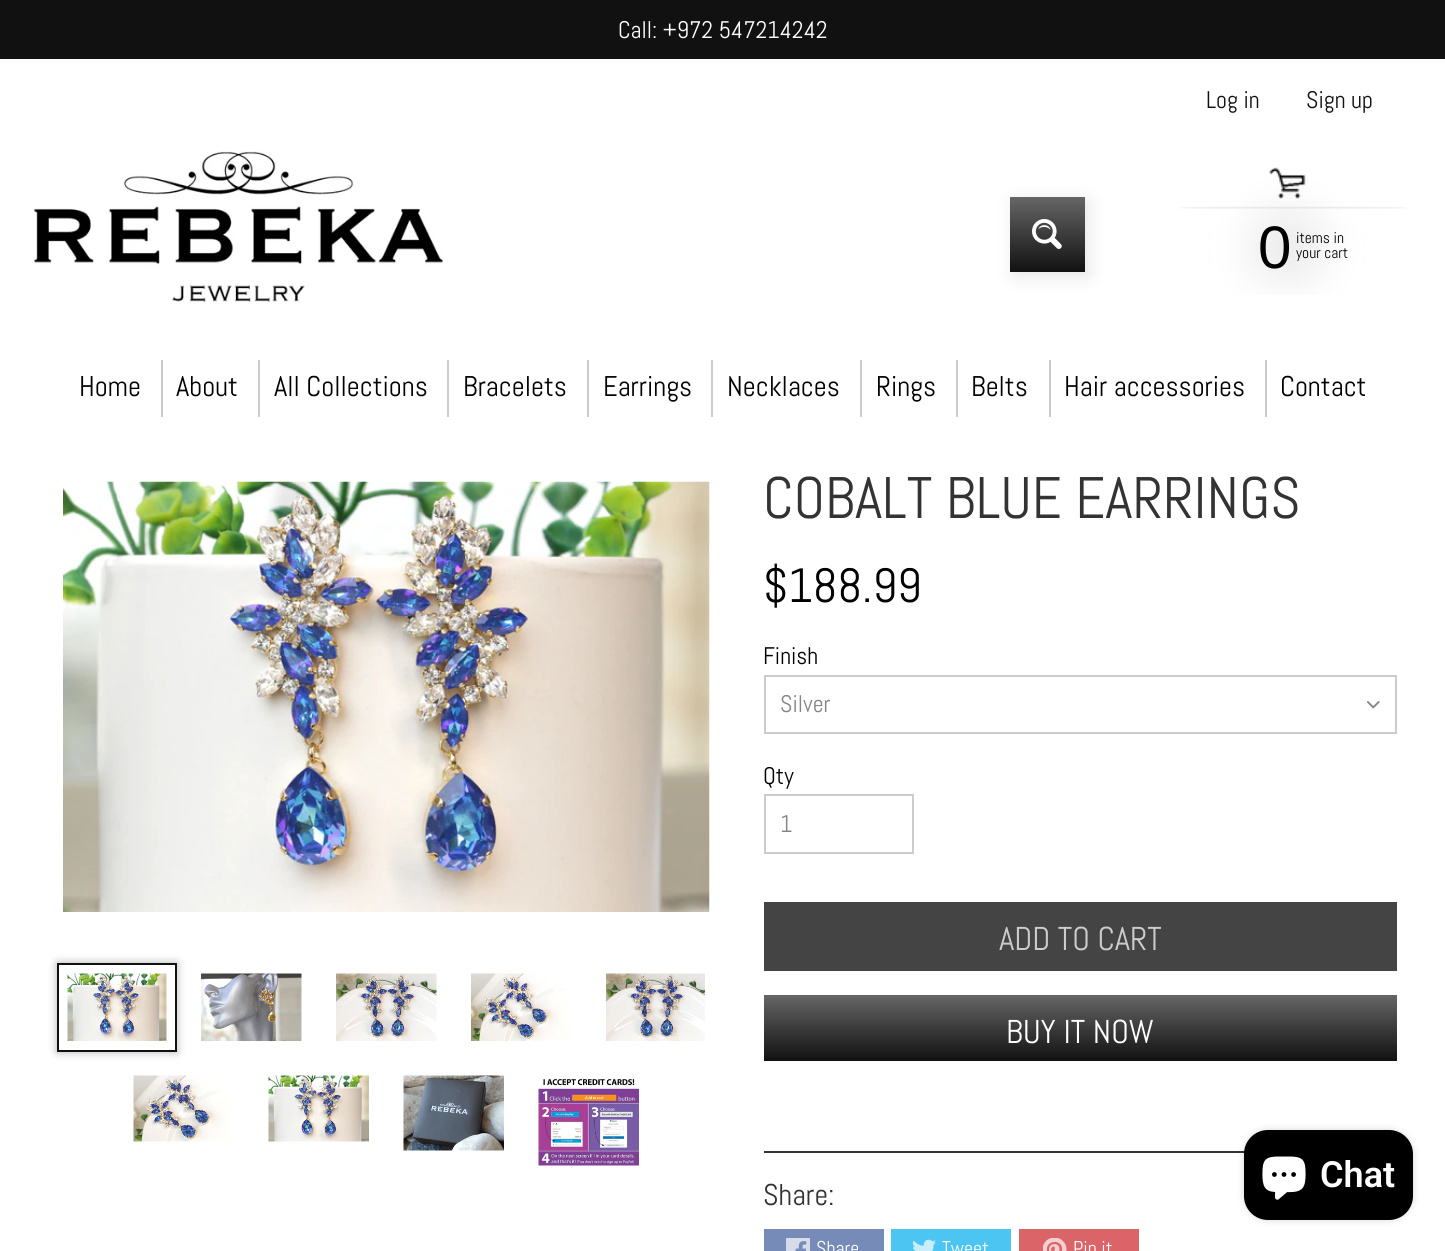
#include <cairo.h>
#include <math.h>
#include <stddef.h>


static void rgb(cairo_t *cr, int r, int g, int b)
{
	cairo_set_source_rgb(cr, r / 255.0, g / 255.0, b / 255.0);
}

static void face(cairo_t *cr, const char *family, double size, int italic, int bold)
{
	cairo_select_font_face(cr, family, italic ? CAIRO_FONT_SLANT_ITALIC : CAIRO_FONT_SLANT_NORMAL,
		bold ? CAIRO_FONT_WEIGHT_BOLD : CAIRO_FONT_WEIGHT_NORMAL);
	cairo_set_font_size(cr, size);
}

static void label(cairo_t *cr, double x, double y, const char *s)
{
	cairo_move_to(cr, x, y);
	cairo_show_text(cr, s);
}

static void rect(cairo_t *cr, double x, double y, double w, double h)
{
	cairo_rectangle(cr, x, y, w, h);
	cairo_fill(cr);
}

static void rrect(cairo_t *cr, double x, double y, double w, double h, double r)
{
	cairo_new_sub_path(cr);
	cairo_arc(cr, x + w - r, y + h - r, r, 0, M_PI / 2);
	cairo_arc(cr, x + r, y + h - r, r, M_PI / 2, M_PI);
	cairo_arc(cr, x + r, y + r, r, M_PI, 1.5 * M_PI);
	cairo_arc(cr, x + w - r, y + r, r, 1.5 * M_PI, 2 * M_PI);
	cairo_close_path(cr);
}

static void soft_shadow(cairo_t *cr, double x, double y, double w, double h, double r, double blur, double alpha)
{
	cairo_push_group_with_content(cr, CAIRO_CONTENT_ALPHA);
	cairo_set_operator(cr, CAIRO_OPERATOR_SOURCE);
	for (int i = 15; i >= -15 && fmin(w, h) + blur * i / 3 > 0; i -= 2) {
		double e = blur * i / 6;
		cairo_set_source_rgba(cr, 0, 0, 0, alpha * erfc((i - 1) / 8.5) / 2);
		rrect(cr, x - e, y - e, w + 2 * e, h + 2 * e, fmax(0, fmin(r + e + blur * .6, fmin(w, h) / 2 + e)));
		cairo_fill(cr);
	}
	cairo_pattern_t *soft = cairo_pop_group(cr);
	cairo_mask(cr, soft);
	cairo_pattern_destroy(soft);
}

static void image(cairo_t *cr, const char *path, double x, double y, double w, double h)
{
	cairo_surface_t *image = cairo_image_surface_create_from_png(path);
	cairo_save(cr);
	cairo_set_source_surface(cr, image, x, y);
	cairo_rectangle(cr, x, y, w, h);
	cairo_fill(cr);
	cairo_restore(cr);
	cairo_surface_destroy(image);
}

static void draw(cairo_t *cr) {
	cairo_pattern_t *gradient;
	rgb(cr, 255, 255, 255);
	cairo_paint(cr);
	rgb(cr, 17, 17, 17);
	rect(cr, 0, 0, 1445, 59);
	face(cr, "Abel", 24, 0, 0);
	rgb(cr, 255, 255, 255);
	label(cr, 618, 38, "Call: +972 547214242");
	image(cr, "image0.png", 34, 151, 410, 151);
	rgb(cr, 17, 17, 17);
	label(cr, 1206, 108, "Log in");
	label(cr, 1306, 108, "Sign up");
	rgb(cr, 0, 0, 0);
	soft_shadow(cr, 1014, 201, 75, 75, 0, 9, 0.1);
	gradient = cairo_pattern_create_linear(1047, 197, 1047, 272);
	cairo_pattern_add_color_stop_rgba(gradient, 0, 0.4, 0.4, 0.4, 1);
	cairo_pattern_add_color_stop_rgba(gradient, 1, 0.067, 0.067, 0.067, 1);
	cairo_set_source(cr, gradient);
	cairo_pattern_destroy(gradient);
	rect(cr, 1010, 197, 75, 75);
	image(cr, "image1.png", 1032, 219, 30, 30);
	image(cr, "image2.png", 1180, 167, 227, 128);
	face(cr, "Liberation Sans", 60, 0, 0);
	rgb(cr, 0, 0, 0);
	label(cr, 1258, 268, "0");
	face(cr, "Abel", 15.5, 0, 0);
	label(cr, 1296, 243, "items in");
	label(cr, 1296, 258, "your cart");
	face(cr, "Abel", 28.5, 0, 0);
	label(cr, 79, 396, "Home");
	rgb(cr, 204, 204, 204);
	rect(cr, 161, 360, 2, 57);
	rgb(cr, 0, 0, 0);
	label(cr, 176, 396, "About");
	rgb(cr, 204, 204, 204);
	rect(cr, 258, 360, 2, 57);
	rgb(cr, 0, 0, 0);
	label(cr, 274, 396, "All Collections");
	rgb(cr, 204, 204, 204);
	rect(cr, 447, 360, 2, 57);
	rgb(cr, 0, 0, 0);
	label(cr, 463, 396, "Bracelets");
	rgb(cr, 204, 204, 204);
	rect(cr, 587, 360, 2, 57);
	rgb(cr, 0, 0, 0);
	label(cr, 603, 396, "Earrings");
	rgb(cr, 204, 204, 204);
	rect(cr, 711, 360, 2, 57);
	rgb(cr, 0, 0, 0);
	label(cr, 727, 396, "Necklaces");
	rgb(cr, 204, 204, 204);
	rect(cr, 860, 360, 2, 57);
	rgb(cr, 0, 0, 0);
	label(cr, 876, 396, "Rings");
	rgb(cr, 204, 204, 204);
	rect(cr, 956, 360, 2, 57);
	rgb(cr, 0, 0, 0);
	label(cr, 971, 396, "Belts");
	rgb(cr, 204, 204, 204);
	rect(cr, 1049, 360, 2, 57);
	rgb(cr, 0, 0, 0);
	label(cr, 1064, 396, "Hair accessories");
	rgb(cr, 204, 204, 204);
	rect(cr, 1265, 360, 2, 57);
	rgb(cr, 0, 0, 0);
	label(cr, 1280, 396, "Contact");
	image(cr, "image3.png", 63, 481, 647, 431);
	rgb(cr, 0, 0, 0);
	soft_shadow(cr, 57, 963, 120, 89, 0, 4.5, 0.3);
	rgb(cr, 255, 255, 255);
	cairo_rectangle(cr, 58, 964, 118, 87);
	cairo_fill_preserve(cr);
	rgb(cr, 17, 17, 17);
	cairo_stroke(cr);
	image(cr, "image4.png", 67, 973, 100, 68);
	image(cr, "image5.png", 201, 973, 101, 68);
	image(cr, "image6.png", 336, 973, 101, 68);
	image(cr, "image7.png", 471, 973, 101, 68);
	image(cr, "image8.png", 606, 973, 99, 68);
	image(cr, "image9.png", 133, 1075, 101, 67);
	image(cr, "image10.png", 268, 1075, 101, 67);
	image(cr, "image11.png", 403, 1075, 101, 76);
	image(cr, "image12.png", 538, 1079, 101, 87);
	face(cr, "Abel", 58.5, 0, 0);
	rgb(cr, 51, 51, 51);
	label(cr, 763, 518, "COBALT BLUE EARRINGS");
	face(cr, "Abel", 48, 0, 0);
	rgb(cr, 0, 0, 0);
	label(cr, 763, 602, "$188.99");
	face(cr, "Abel", 24, 0, 0);
	label(cr, 763, 664, "Finish");
	image(cr, "image13.png", 1367, 701, 13, 8);
	cairo_rectangle(cr, 765, 676, 631, 57);
	rgb(cr, 204, 204, 204);
	cairo_stroke(cr);
	rgb(cr, 134, 131, 131);
	label(cr, 780, 712, "Silver");
	rgb(cr, 0, 0, 0);
	label(cr, 763, 784, "Qty");
	cairo_rectangle(cr, 765, 795, 148, 58);
	rgb(cr, 204, 204, 204);
	cairo_stroke(cr);
	rgb(cr, 134, 131, 131);
	label(cr, 780, 832, "1");
	rgb(cr, 68, 68, 68);
	rect(cr, 764, 902, 633, 69);
	face(cr, "Abel", 33, 0, 0);
	rgb(cr, 204, 204, 204);
	label(cr, 999, 950, "ADD TO CART");
	gradient = cairo_pattern_create_linear(1080, 995, 1080, 1061);
	cairo_pattern_add_color_stop_rgba(gradient, 0, 0.4, 0.4, 0.4, 1);
	cairo_pattern_add_color_stop_rgba(gradient, 1, 0.067, 0.067, 0.067, 1);
	cairo_set_source(cr, gradient);
	cairo_pattern_destroy(gradient);
	rect(cr, 764, 995, 633, 66);
	rgb(cr, 255, 255, 255);
	label(cr, 1006, 1043, "BUY IT NOW");
	rgb(cr, 51, 51, 51);
	rect(cr, 764, 1151, 481, 2);
	face(cr, "Abel", 30, 0, 0);
	label(cr, 763, 1205, "Share:");
	rgb(cr, 118, 139, 183);
	rect(cr, 764, 1229, 120, 22);
	image(cr, "image14.png", 786, 1238, 24, 13);
	face(cr, "Abel", 20, 0, 0);
	rgb(cr, 255, 255, 255);
	label(cr, 816, 1255, "Share");
	rgb(cr, 77, 197, 242);
	rect(cr, 891, 1229, 120, 22);
	image(cr, "image15.png", 913, 1239, 23, 12);
	rgb(cr, 255, 255, 255);
	label(cr, 942, 1255, "Tweet");
	rgb(cr, 219, 100, 104);
	rect(cr, 1019, 1229, 120, 22);
	image(cr, "image16.png", 1043, 1238, 24, 13);
	rgb(cr, 255, 255, 255);
	label(cr, 1073, 1255, "Pin it");
	rgb(cr, 0, 0, 0);
	soft_shadow(cr, 1244, 1130, 169, 90, 24, 4, 0.15);
	rgb(cr, 0, 0, 0);
	rrect(cr, 1244, 1130, 169, 90, 24);
	cairo_fill(cr);
	image(cr, "image17.png", 1262, 1156, 44, 44);
	face(cr, "Roboto SemiBold", 36, 0, 0);
	rgb(cr, 255, 255, 255);
	label(cr, 1320, 1187, "Chat");
}

int main(void) {
	cairo_surface_t *surface = cairo_image_surface_create(CAIRO_FORMAT_RGB24, 1445, 1251);
	cairo_t *cr = cairo_create(surface);
	cairo_font_options_t *options = cairo_font_options_create();
	cairo_font_options_set_hint_metrics(options, CAIRO_HINT_METRICS_OFF);
	cairo_font_options_set_hint_style(options, CAIRO_HINT_STYLE_NONE);
	cairo_set_font_options(cr, options);
	cairo_set_miter_limit(cr, 4);
	draw(cr);
	cairo_surface_write_to_png(surface, "render.png");
	cairo_font_options_destroy(options);
	cairo_destroy(cr);
	cairo_surface_destroy(surface);
	return 0;
}
